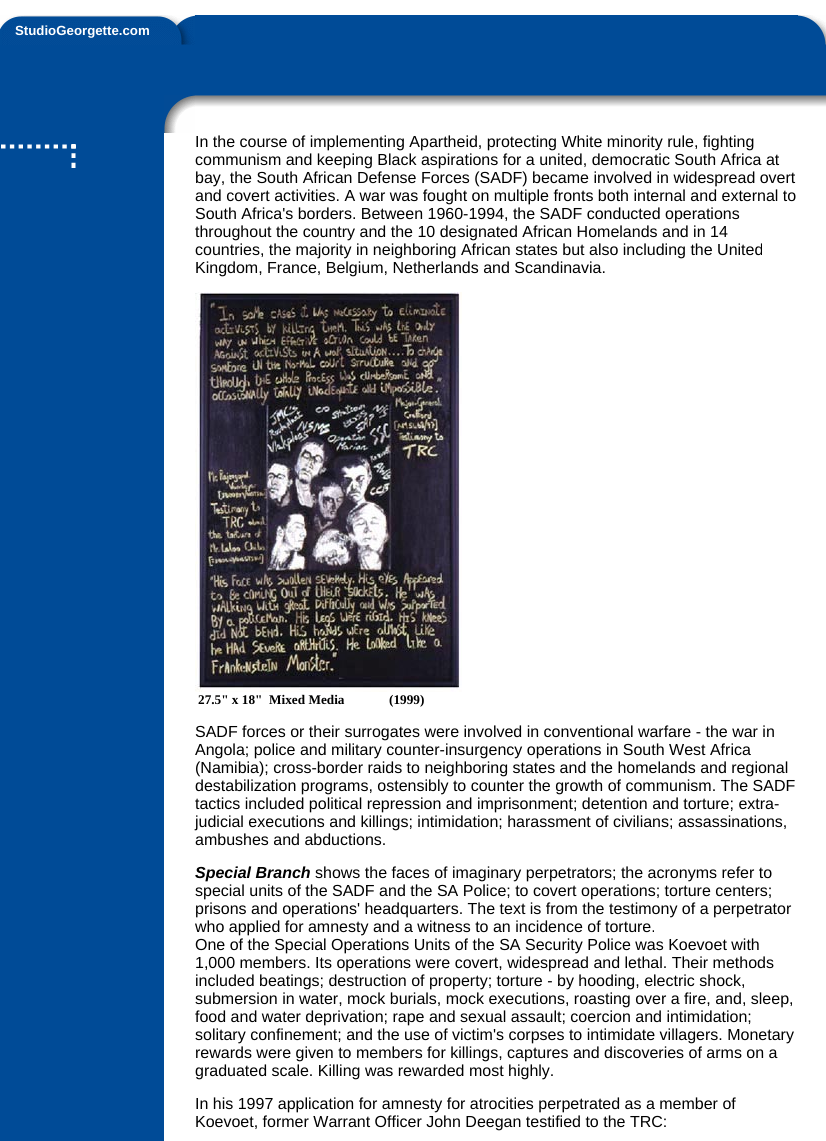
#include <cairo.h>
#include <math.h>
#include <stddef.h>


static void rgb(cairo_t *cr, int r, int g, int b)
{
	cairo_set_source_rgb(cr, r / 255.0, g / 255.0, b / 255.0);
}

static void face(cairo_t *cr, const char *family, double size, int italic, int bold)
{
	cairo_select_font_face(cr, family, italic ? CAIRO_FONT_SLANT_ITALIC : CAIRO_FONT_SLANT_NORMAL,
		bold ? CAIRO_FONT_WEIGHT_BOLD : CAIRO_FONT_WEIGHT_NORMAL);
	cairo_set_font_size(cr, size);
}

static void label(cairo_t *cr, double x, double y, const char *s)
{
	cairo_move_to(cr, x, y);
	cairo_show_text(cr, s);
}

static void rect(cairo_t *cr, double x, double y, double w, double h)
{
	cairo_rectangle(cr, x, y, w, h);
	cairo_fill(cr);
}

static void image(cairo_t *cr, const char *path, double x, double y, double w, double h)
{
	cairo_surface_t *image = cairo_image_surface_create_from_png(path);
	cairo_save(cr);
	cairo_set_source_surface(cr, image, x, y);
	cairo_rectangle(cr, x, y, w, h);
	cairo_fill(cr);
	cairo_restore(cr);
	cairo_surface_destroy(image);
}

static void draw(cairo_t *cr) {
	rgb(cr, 255, 255, 255);
	cairo_paint(cr);
	image(cr, "image0.png", 0, 15, 195, 30);
	face(cr, "Liberation Sans", 13.25, 0, 1);
	rgb(cr, 255, 255, 255);
	label(cr, 15, 35, "StudioGeorgette.com");
	rgb(cr, 0, 75, 151);
	rect(cr, 195, 15, 603, 80);
	image(cr, "image1.png", 798, 15, 28, 30);
	rect(cr, 0, 45, 164, 1096);
	rect(cr, 164, 45, 31, 50);
	rect(cr, 798, 45, 28, 50);
	image(cr, "image2.png", 164, 95, 31, 38);
	image(cr, "image3.png", 195, 95, 603, 12);
	image(cr, "image4.png", 798, 95, 28, 12);
	image(cr, "image5.png", 1, 144, 75, 24);
	face(cr, "Liberation Sans", 16, 0, 0);
	rgb(cr, 0, 0, 0);
	label(cr, 195, 147, "In the course of implementing Apartheid, protecting White minority rule, fighting");
	label(cr, 195, 165, "communism and keeping Black aspirations for a united, democratic South Africa at");
	label(cr, 195, 183, "bay, the South African Defense Forces (SADF) became involved in widespread overt");
	label(cr, 195, 201, "and covert activities. A war was fought on multiple fronts both internal and external to");
	label(cr, 195, 219, "South Africa's borders. Between 1960-1994, the SADF conducted operations");
	label(cr, 195, 237, "throughout the country and the 10 designated African Homelands and in 14");
	label(cr, 195, 255, "countries, the majority in neighboring African states but also including the United");
	label(cr, 195, 273, "Kingdom, France, Belgium, Netherlands and Scandinavia.");
	image(cr, "image6.png", 195, 292, 267, 400);
	face(cr, "Liberation Serif", 13.25, 0, 1);
	label(cr, 198, 704, "27.5\" x 18\"  Mixed Media");
	label(cr, 389, 704, "(1999)");
	face(cr, "Liberation Sans", 16, 0, 0);
	label(cr, 195, 737, "SADF forces or their surrogates were involved in conventional warfare - the war in");
	label(cr, 195, 755, "Angola; police and military counter-insurgency operations in South West Africa");
	label(cr, 195, 773, "(Namibia); cross-border raids to neighboring states and the homelands and regional");
	label(cr, 195, 791, "destabilization programs, ostensibly to counter the growth of communism. The SADF");
	label(cr, 195, 809, "tactics included political repression and imprisonment; detention and torture; extra-");
	label(cr, 195, 827, "judicial executions and killings; intimidation; harassment of civilians; assassinations,");
	label(cr, 195, 845, "ambushes and abductions.");
	face(cr, "Liberation Sans", 16, 1, 1);
	label(cr, 195, 878, "Special Branch");
	face(cr, "Liberation Sans", 16, 0, 0);
	label(cr, 315, 878, "shows the faces of imaginary perpetrators; the acronyms refer to");
	label(cr, 195, 896, "special units of the SADF and the SA Police; to covert operations; torture centers;");
	label(cr, 195, 914, "prisons and operations' headquarters. The text is from the testimony of a perpetrator");
	label(cr, 195, 932, "who applied for amnesty and a witness to an incidence of torture.");
	label(cr, 195, 950, "One of the Special Operations Units of the SA Security Police was Koevoet with");
	label(cr, 195, 968, "1,000 members. Its operations were covert, widespread and lethal. Their methods");
	label(cr, 195, 986, "included beatings; destruction of property; torture - by hooding, electric shock,");
	label(cr, 195, 1004, "submersion in water, mock burials, mock executions, roasting over a fire, and, sleep,");
	label(cr, 195, 1022, "food and water deprivation; rape and sexual assault; coercion and intimidation;");
	label(cr, 195, 1040, "solitary confinement; and the use of victim's corpses to intimidate villagers. Monetary");
	label(cr, 195, 1058, "rewards were given to members for killings, captures and discoveries of arms on a");
	label(cr, 195, 1076, "graduated scale. Killing was rewarded most highly.");
	label(cr, 195, 1109, "In his 1997 application for amnesty for atrocities perpetrated as a member of");
	label(cr, 195, 1127, "Koevoet, former Warrant Officer John Deegan testified to the TRC:");
}

int main(void) {
	cairo_surface_t *surface = cairo_image_surface_create(CAIRO_FORMAT_RGB24, 826, 1141);
	cairo_t *cr = cairo_create(surface);
	cairo_font_options_t *options = cairo_font_options_create();
	cairo_font_options_set_hint_metrics(options, CAIRO_HINT_METRICS_OFF);
	cairo_font_options_set_hint_style(options, CAIRO_HINT_STYLE_NONE);
	cairo_set_font_options(cr, options);
	cairo_set_miter_limit(cr, 4);
	draw(cr);
	cairo_surface_write_to_png(surface, "render.png");
	cairo_font_options_destroy(options);
	cairo_destroy(cr);
	cairo_surface_destroy(surface);
	return 0;
}
